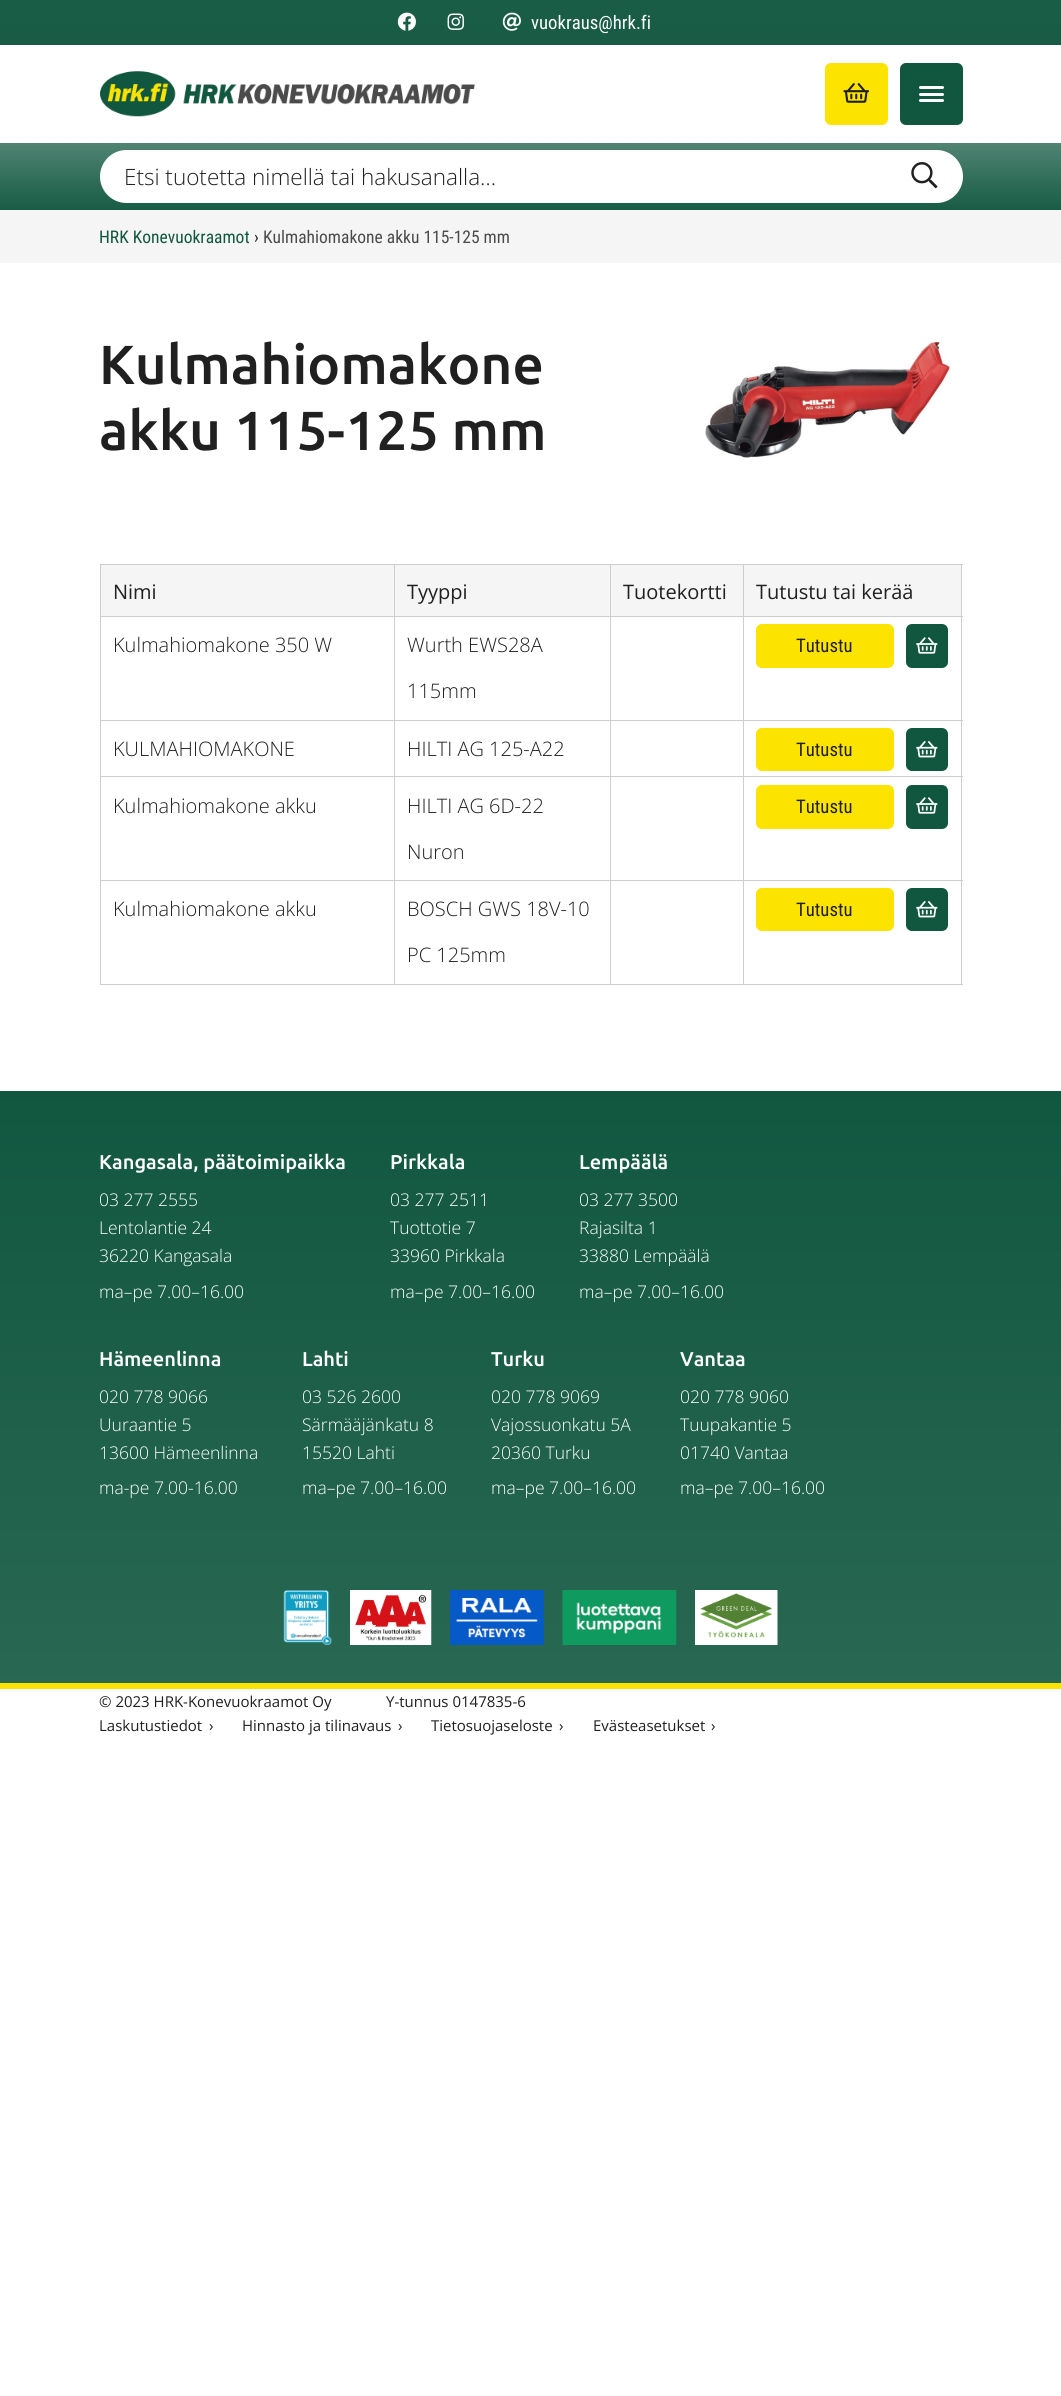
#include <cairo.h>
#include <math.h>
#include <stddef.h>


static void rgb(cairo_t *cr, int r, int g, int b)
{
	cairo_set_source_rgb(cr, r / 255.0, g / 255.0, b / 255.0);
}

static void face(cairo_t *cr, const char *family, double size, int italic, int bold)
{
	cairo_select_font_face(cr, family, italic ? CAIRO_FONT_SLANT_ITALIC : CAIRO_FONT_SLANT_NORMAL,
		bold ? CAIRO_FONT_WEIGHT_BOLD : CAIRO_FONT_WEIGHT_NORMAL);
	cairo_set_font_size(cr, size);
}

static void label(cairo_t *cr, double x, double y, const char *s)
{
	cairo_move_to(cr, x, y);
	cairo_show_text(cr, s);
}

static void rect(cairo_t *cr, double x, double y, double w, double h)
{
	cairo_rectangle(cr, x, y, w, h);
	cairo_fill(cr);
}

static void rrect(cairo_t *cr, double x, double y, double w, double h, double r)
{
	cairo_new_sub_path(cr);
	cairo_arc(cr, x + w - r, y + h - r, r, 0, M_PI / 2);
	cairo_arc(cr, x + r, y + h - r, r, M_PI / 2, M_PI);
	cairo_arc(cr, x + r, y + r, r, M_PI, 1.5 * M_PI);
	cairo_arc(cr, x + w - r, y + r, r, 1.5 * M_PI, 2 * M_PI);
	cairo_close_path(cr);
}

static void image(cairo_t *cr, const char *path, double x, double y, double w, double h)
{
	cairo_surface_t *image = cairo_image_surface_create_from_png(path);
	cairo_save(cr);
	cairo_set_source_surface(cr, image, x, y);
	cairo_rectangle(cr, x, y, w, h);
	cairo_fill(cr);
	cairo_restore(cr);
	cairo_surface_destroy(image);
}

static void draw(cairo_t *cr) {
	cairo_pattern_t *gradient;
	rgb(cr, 255, 255, 255);
	cairo_paint(cr);
	gradient = cairo_pattern_create_linear(531, 0, 531, 45);
	cairo_pattern_add_color_stop_rgba(gradient, 0, 0.098, 0.365, 0.278, 1);
	cairo_pattern_add_color_stop_rgba(gradient, 1, 0.094, 0.361, 0.271, 1);
	cairo_set_source(cr, gradient);
	cairo_pattern_destroy(gradient);
	rect(cr, 0, 0, 1061, 45);
	image(cr, "image0.png", 397, 12, 19, 19);
	image(cr, "image1.png", 447, 13, 17, 17);
	image(cr, "image2.png", 502, 12, 19, 19);
	face(cr, "Roboto Condensed", 18.75, 0, 0);
	rgb(cr, 255, 255, 255);
	label(cr, 531, 29, "vuokraus@hrk.fi");
	image(cr, "image3.png", 100, 71, 375, 46);
	rgb(cr, 252, 227, 0);
	rrect(cr, 826.5, 64.5, 60, 59, 4.5);
	cairo_fill_preserve(cr);
	cairo_set_line_width(cr, 3);
	cairo_stroke(cr);
	image(cr, "image4.png", 843, 83, 26, 20);
	rgb(cr, 17, 87, 64);
	rrect(cr, 901.5, 64.5, 60, 59, 4.5);
	cairo_fill_preserve(cr);
	cairo_stroke(cr);
	rgb(cr, 255, 255, 255);
	rrect(cr, 919, 99, 25, 3, 1.5);
	cairo_fill(cr);
	rrect(cr, 919, 86, 25, 3, 1.5);
	cairo_fill(cr);
	rrect(cr, 919, 93, 25, 3, 1.5);
	cairo_fill(cr);
	gradient = cairo_pattern_create_linear(531, 142, 531, 210);
	cairo_pattern_add_color_stop_rgba(gradient, 0, 0.318, 0.518, 0.455, 1);
	cairo_pattern_add_color_stop_rgba(gradient, 1, 0.094, 0.361, 0.271, 1);
	cairo_set_source(cr, gradient);
	cairo_pattern_destroy(gradient);
	rect(cr, 0, 143, 1061, 67);
	rgb(cr, 255, 255, 255);
	rrect(cr, 100, 150, 863, 53, 26.5);
	cairo_fill(cr);
	face(cr, "Open Sans Light", 22.5, 0, 0);
	rgb(cr, 32, 32, 32);
	label(cr, 124, 185, "Etsi tuotetta nimellä tai hakusanalla…");
	image(cr, "image5.png", 911, 162, 27, 27);
	rgb(cr, 245, 245, 245);
	rect(cr, 0, 210, 1061, 53);
	face(cr, "Roboto Condensed", 17.5, 0, 0);
	rgb(cr, 17, 87, 64);
	label(cr, 99, 243, "HRK Konevuokraamot");
	rgb(cr, 32, 32, 32);
	label(cr, 254, 243, "›");
	rgb(cr, 76, 75, 75);
	label(cr, 263, 243, "Kulmahiomakone akku 115-125 mm");
	face(cr, "Ubuntu Medium", 55, 0, 0);
	rgb(cr, 32, 32, 32);
	label(cr, 99, 384, "Kulmahiomakone");
	label(cr, 99, 450, "akku 115-125 mm");
	image(cr, "image6.png", 705, 341, 246, 117);
	rgb(cr, 245, 245, 245);
	rect(cr, 101, 565, 293, 51);
	rgb(cr, 206, 206, 206);
	rect(cr, 743, 564, 220, 1);
	rect(cr, 743, 616, 220, 1);
	rect(cr, 743, 720, 220, 1);
	rect(cr, 743, 776, 220, 1);
	rect(cr, 743, 880, 220, 1);
	rect(cr, 961, 880, 1, 105);
	rect(cr, 743, 984, 220, 1);
	rect(cr, 743, 880, 1, 105);
	rect(cr, 610, 880, 134, 1);
	rect(cr, 743, 776, 1, 105);
	rect(cr, 610, 776, 134, 1);
	rect(cr, 743, 720, 1, 58);
	rect(cr, 610, 720, 134, 1);
	rect(cr, 743, 616, 1, 105);
	rect(cr, 610, 616, 134, 1);
	rect(cr, 743, 564, 1, 54);
	rect(cr, 610, 564, 134, 1);
	rect(cr, 610, 984, 134, 1);
	rect(cr, 610, 880, 1, 105);
	rect(cr, 394, 880, 217, 1);
	rect(cr, 610, 776, 1, 105);
	rect(cr, 394, 776, 217, 1);
	rect(cr, 610, 720, 1, 58);
	rect(cr, 394, 720, 217, 1);
	rect(cr, 610, 616, 1, 105);
	rect(cr, 394, 616, 217, 1);
	rect(cr, 610, 564, 1, 54);
	rect(cr, 394, 564, 217, 1);
	rect(cr, 394, 984, 217, 1);
	rect(cr, 394, 880, 1, 105);
	rect(cr, 100, 880, 295, 1);
	rect(cr, 394, 776, 1, 105);
	rect(cr, 100, 776, 295, 1);
	rect(cr, 394, 720, 1, 58);
	rect(cr, 100, 720, 295, 1);
	rect(cr, 394, 616, 1, 105);
	rect(cr, 100, 616, 295, 1);
	rect(cr, 394, 564, 1, 54);
	rect(cr, 100, 564, 295, 1);
	rect(cr, 100, 984, 295, 1);
	rect(cr, 100, 880, 1, 105);
	rect(cr, 100, 776, 1, 105);
	rect(cr, 100, 720, 1, 58);
	rect(cr, 100, 616, 1, 105);
	rect(cr, 100, 564, 1, 54);
	face(cr, "Open Sans", 20, 0, 0);
	rgb(cr, 32, 32, 32);
	label(cr, 113, 599, "Nimi");
	rgb(cr, 245, 245, 245);
	rect(cr, 395, 565, 215, 51);
	rgb(cr, 32, 32, 32);
	label(cr, 407, 599, "Tyyppi");
	rgb(cr, 245, 245, 245);
	rect(cr, 611, 565, 132, 51);
	rgb(cr, 32, 32, 32);
	label(cr, 623, 599, "Tuotekortti");
	rgb(cr, 245, 245, 245);
	rect(cr, 744, 565, 217, 51);
	rgb(cr, 206, 206, 206);
	rect(cr, 961, 776, 1, 105);
	rect(cr, 961, 720, 1, 58);
	rect(cr, 961, 616, 1, 105);
	rect(cr, 961, 564, 1, 54);
	rgb(cr, 32, 32, 32);
	label(cr, 756, 599, "Tutustu tai kerää");
	face(cr, "Open Sans Light", 20, 0, 0);
	label(cr, 113, 652, "Kulmahiomakone 350 W");
	label(cr, 407, 652, "Wurth EWS28A");
	label(cr, 407, 698, "115mm");
	rgb(cr, 252, 227, 0);
	rrect(cr, 757.5, 625.5, 135, 41, 4.5);
	cairo_fill_preserve(cr);
	cairo_stroke(cr);
	face(cr, "Roboto Condensed", 18.75, 0, 0);
	rgb(cr, 32, 32, 32);
	label(cr, 796, 652, "Tutustu");
	rgb(cr, 17, 87, 64);
	rrect(cr, 907.5, 625.5, 39, 41, 4.5);
	cairo_fill_preserve(cr);
	cairo_stroke(cr);
	image(cr, "image7.png", 916, 637, 22, 17);
	face(cr, "Open Sans Light", 20, 0, 0);
	rgb(cr, 32, 32, 32);
	label(cr, 113, 756, "KULMAHIOMAKONE");
	label(cr, 407, 756, "HILTI AG 125-A22");
	rgb(cr, 252, 227, 0);
	rrect(cr, 757.5, 729.5, 135, 40, 4.5);
	cairo_fill_preserve(cr);
	cairo_stroke(cr);
	face(cr, "Roboto Condensed", 18.75, 0, 0);
	rgb(cr, 32, 32, 32);
	label(cr, 796, 756, "Tutustu");
	rgb(cr, 17, 87, 64);
	rrect(cr, 907.5, 729.5, 39, 40, 4.5);
	cairo_fill_preserve(cr);
	cairo_stroke(cr);
	image(cr, "image8.png", 916, 741, 22, 17);
	face(cr, "Open Sans Light", 20, 0, 0);
	rgb(cr, 32, 32, 32);
	label(cr, 113, 813, "Kulmahiomakone akku");
	label(cr, 407, 813, "HILTI AG 6D-22");
	label(cr, 407, 859, "Nuron");
	rgb(cr, 252, 227, 0);
	rrect(cr, 757.5, 786.5, 135, 41, 4.5);
	cairo_fill_preserve(cr);
	cairo_stroke(cr);
	face(cr, "Roboto Condensed", 18.75, 0, 0);
	rgb(cr, 32, 32, 32);
	label(cr, 796, 813, "Tutustu");
	rgb(cr, 17, 87, 64);
	rrect(cr, 907.5, 786.5, 39, 41, 4.5);
	cairo_fill_preserve(cr);
	cairo_stroke(cr);
	image(cr, "image7.png", 916, 797, 22, 17);
	face(cr, "Open Sans Light", 20, 0, 0);
	rgb(cr, 32, 32, 32);
	label(cr, 113, 916, "Kulmahiomakone akku");
	label(cr, 407, 916, "BOSCH GWS 18V-10");
	label(cr, 407, 962, "PC 125mm");
	rgb(cr, 252, 227, 0);
	rrect(cr, 757.5, 889.5, 135, 40, 4.5);
	cairo_fill_preserve(cr);
	cairo_stroke(cr);
	face(cr, "Roboto Condensed", 18.75, 0, 0);
	rgb(cr, 32, 32, 32);
	label(cr, 796, 916, "Tutustu");
	rgb(cr, 17, 87, 64);
	rrect(cr, 907.5, 889.5, 39, 40, 4.5);
	cairo_fill_preserve(cr);
	cairo_stroke(cr);
	image(cr, "image8.png", 916, 901, 22, 17);
	gradient = cairo_pattern_create_linear(531, 1091, 531, 1689);
	cairo_pattern_add_color_stop_rgba(gradient, 0, 0.067, 0.341, 0.251, 1);
	cairo_pattern_add_color_stop_rgba(gradient, 1, 0.161, 0.408, 0.325, 1);
	cairo_set_source(cr, gradient);
	cairo_pattern_destroy(gradient);
	rect(cr, 0, 1091, 1061, 592);
	face(cr, "Ubuntu Medium", 20, 0, 0);
	rgb(cr, 255, 255, 255);
	label(cr, 99, 1169, "Kangasala, päätoimipaikka");
	face(cr, "Open Sans Light", 17.5, 0, 0);
	label(cr, 99, 1206, "03 277 2555");
	label(cr, 99, 1234, "Lentolantie 24");
	label(cr, 99, 1262, "36220 Kangasala");
	label(cr, 99, 1298, "ma–pe 7.00–16.00");
	face(cr, "Ubuntu Medium", 20, 0, 0);
	label(cr, 390, 1169, "Pirkkala");
	face(cr, "Open Sans Light", 17.5, 0, 0);
	label(cr, 390, 1206, "03 277 2511");
	label(cr, 390, 1234, "Tuottotie 7");
	label(cr, 390, 1262, "33960 Pirkkala");
	label(cr, 390, 1298, "ma–pe 7.00–16.00");
	face(cr, "Ubuntu Medium", 20, 0, 0);
	label(cr, 579, 1169, "Lempäälä");
	face(cr, "Open Sans Light", 17.5, 0, 0);
	label(cr, 579, 1206, "03 277 3500");
	label(cr, 579, 1234, "Rajasilta 1");
	label(cr, 579, 1262, "33880 Lempäälä");
	label(cr, 579, 1298, "ma–pe 7.00–16.00");
	face(cr, "Ubuntu Medium", 20, 0, 0);
	label(cr, 99, 1366, "Hämeenlinna");
	face(cr, "Open Sans Light", 17.5, 0, 0);
	label(cr, 99, 1403, "020 778 9066");
	label(cr, 99, 1431, "Uuraantie 5");
	label(cr, 99, 1459, "13600 Hämeenlinna");
	label(cr, 99, 1494, "ma-pe 7.00-16.00");
	face(cr, "Ubuntu Medium", 20, 0, 0);
	label(cr, 302, 1366, "Lahti");
	face(cr, "Open Sans Light", 17.5, 0, 0);
	label(cr, 302, 1403, "03 526 2600");
	label(cr, 302, 1431, "Särmääjänkatu 8");
	label(cr, 302, 1459, "15520 Lahti");
	label(cr, 302, 1494, "ma–pe 7.00–16.00");
	face(cr, "Ubuntu Medium", 20, 0, 0);
	label(cr, 491, 1366, "Turku");
	face(cr, "Open Sans Light", 17.5, 0, 0);
	label(cr, 491, 1403, "020 778 9069");
	label(cr, 491, 1431, "Vajossuonkatu 5A");
	label(cr, 491, 1459, "20360 Turku");
	label(cr, 491, 1494, "ma–pe 7.00–16.00");
	face(cr, "Ubuntu Medium", 20, 0, 0);
	label(cr, 680, 1366, "Vantaa");
	face(cr, "Open Sans Light", 17.5, 0, 0);
	label(cr, 680, 1403, "020 778 9060");
	label(cr, 680, 1431, "Tuupakantie 5");
	label(cr, 680, 1459, "01740 Vantaa");
	label(cr, 680, 1494, "ma–pe 7.00–16.00");
	rgb(cr, 252, 227, 0);
	rect(cr, 0, 1683, 1061, 6);
	image(cr, "image9.png", 283, 1590, 49, 55);
	image(cr, "image10.png", 350, 1590, 82, 55);
	image(cr, "image11.png", 450, 1590, 94, 55);
	image(cr, "image12.png", 562, 1590, 115, 55);
	image(cr, "image13.png", 695, 1590, 83, 55);
	face(cr, "Open Sans", 15, 0, 0);
	rgb(cr, 32, 32, 32);
	label(cr, 99, 1707, "© 2023 HRK-Konevuokraamot Oy");
	label(cr, 386, 1707, "Y-tunnus 0147835-6");
	label(cr, 99, 1731, "Laskutustiedot");
	label(cr, 209, 1731, "›");
	label(cr, 242, 1731, "Hinnasto ja tilinavaus");
	label(cr, 398, 1731, "›");
	label(cr, 431, 1731, "Tietosuojaseloste");
	label(cr, 559, 1731, "›");
	label(cr, 593, 1731, "Evästeasetukset");
	label(cr, 711, 1731, "›");
}

int main(void) {
	cairo_surface_t *surface = cairo_image_surface_create(CAIRO_FORMAT_RGB24, 1061, 2396);
	cairo_t *cr = cairo_create(surface);
	cairo_font_options_t *options = cairo_font_options_create();
	cairo_font_options_set_hint_metrics(options, CAIRO_HINT_METRICS_OFF);
	cairo_font_options_set_hint_style(options, CAIRO_HINT_STYLE_NONE);
	cairo_set_font_options(cr, options);
	cairo_set_miter_limit(cr, 4);
	draw(cr);
	cairo_surface_write_to_png(surface, "render.png");
	cairo_font_options_destroy(options);
	cairo_destroy(cr);
	cairo_surface_destroy(surface);
	return 0;
}
